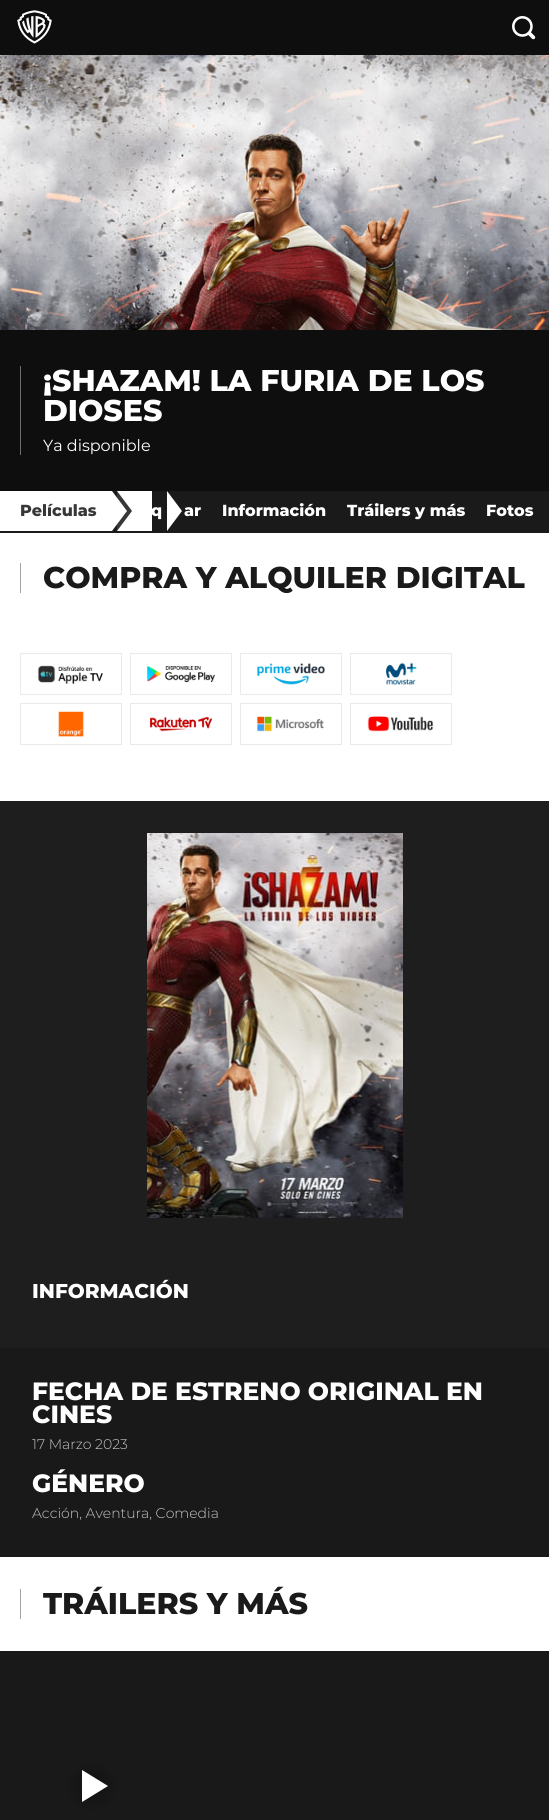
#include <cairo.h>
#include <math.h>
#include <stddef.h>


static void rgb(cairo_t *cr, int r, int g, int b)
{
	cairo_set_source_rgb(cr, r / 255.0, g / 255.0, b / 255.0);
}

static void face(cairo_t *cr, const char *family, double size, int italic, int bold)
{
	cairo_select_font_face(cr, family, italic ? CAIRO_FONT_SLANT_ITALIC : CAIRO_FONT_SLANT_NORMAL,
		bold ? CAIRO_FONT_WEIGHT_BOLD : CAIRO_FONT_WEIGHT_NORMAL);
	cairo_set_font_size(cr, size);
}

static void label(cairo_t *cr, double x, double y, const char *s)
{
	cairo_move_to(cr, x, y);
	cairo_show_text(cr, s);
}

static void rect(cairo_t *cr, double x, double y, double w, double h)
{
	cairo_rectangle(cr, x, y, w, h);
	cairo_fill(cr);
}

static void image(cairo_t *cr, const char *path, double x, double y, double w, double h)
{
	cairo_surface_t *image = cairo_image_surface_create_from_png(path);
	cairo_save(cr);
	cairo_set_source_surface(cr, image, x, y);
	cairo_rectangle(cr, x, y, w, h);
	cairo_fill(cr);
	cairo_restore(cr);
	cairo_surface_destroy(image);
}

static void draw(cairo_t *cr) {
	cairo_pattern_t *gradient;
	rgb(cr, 14, 14, 14);
	cairo_paint(cr);
	image(cr, "image0.png", 17, 10, 35, 34);
	image(cr, "image1.png", 512, 16, 24, 24);
	image(cr, "image2.png", 0, 55, 549, 275);
	rgb(cr, 110, 110, 110);
	rect(cr, 20, 366, 1, 89);
	face(cr, "Montserrat ExtraBold", 30, 0, 0);
	rgb(cr, 255, 255, 255);
	label(cr, 43, 391, "¡SHAZAM! LA FURIA DE LOS");
	label(cr, 43, 421, "DIOSES");
	face(cr, "Montserrat", 16, 0, 0);
	label(cr, 43, 451, "Ya disponible");
	rgb(cr, 26, 26, 26);
	rect(cr, 0, 491, 549, 42);
	rgb(cr, 255, 255, 255);
	rect(cr, 0, 491, 112, 40);
	face(cr, "Montserrat ExtraBold", 16, 0, 0);
	rgb(cr, 55, 55, 55);
	label(cr, 20, 516, "Películas");
	rgb(cr, 255, 255, 255);
	rect(cr, 117, 491, 35, 40);
	rgb(cr, 55, 55, 55);
	cairo_new_path(cr);
	cairo_move_to(cr, 117, 531);
	cairo_line_to(cr, 117, 491);
	cairo_line_to(cr, 132, 511);
	cairo_close_path(cr);
	cairo_fill(cr);
	rgb(cr, 255, 255, 255);
	cairo_new_path(cr);
	cairo_move_to(cr, 112, 531);
	cairo_line_to(cr, 112, 491);
	cairo_line_to(cr, 127, 511);
	cairo_close_path(cr);
	cairo_fill(cr);
	cairo_new_path(cr);
	cairo_move_to(cr, 167, 531);
	cairo_line_to(cr, 167, 491);
	cairo_line_to(cr, 182, 511);
	cairo_close_path(cr);
	cairo_fill(cr);
	label(cr, 151, 516, "q");
	label(cr, 184, 516, "ar");
	label(cr, 222, 516, "Información");
	label(cr, 347, 516, "Tráilers y más");
	label(cr, 486, 516, "Fotos");
	rect(cr, 0, 533, 549, 268);
	rgb(cr, 165, 165, 165);
	rect(cr, 20, 563, 1, 30);
	face(cr, "Montserrat ExtraBold", 30, 0, 0);
	rgb(cr, 26, 26, 26);
	label(cr, 43, 588, "COMPRA Y ALQUILER DIGITAL");
	cairo_rectangle(cr, 20.5, 653.5, 101, 41);
	rgb(cr, 234, 234, 234);
	cairo_set_line_width(cr, 1);
	cairo_stroke(cr);
	image(cr, "image3.png", 37, 665, 66, 19);
	cairo_rectangle(cr, 130.5, 653.5, 101, 41);
	cairo_stroke(cr);
	image(cr, "image4.png", 147, 666, 68, 17);
	cairo_rectangle(cr, 240.5, 653.5, 101, 41);
	cairo_stroke(cr);
	image(cr, "image5.png", 257, 663, 68, 22);
	cairo_rectangle(cr, 350.5, 653.5, 101, 41);
	cairo_stroke(cr);
	image(cr, "image6.png", 385, 662, 32, 23);
	cairo_rectangle(cr, 20.5, 703.5, 101, 41);
	cairo_stroke(cr);
	image(cr, "image7.png", 58, 711, 26, 26);
	cairo_rectangle(cr, 130.5, 703.5, 101, 41);
	cairo_stroke(cr);
	image(cr, "image8.png", 149, 716, 63, 16);
	cairo_rectangle(cr, 240.5, 703.5, 101, 41);
	cairo_stroke(cr);
	image(cr, "image9.png", 257, 716, 67, 16);
	cairo_rectangle(cr, 350.5, 703.5, 101, 41);
	cairo_stroke(cr);
	image(cr, "image10.png", 367, 716, 67, 16);
	rgb(cr, 30, 30, 30);
	rect(cr, 0, 801, 549, 547);
	image(cr, "image11.png", 147, 833, 256, 385);
	face(cr, "Montserrat ExtraBold", 20, 0, 0);
	rgb(cr, 255, 255, 255);
	label(cr, 32, 1298, "INFORMACIÓN");
	rgb(cr, 25, 25, 25);
	rect(cr, 0, 1348, 549, 209);
	face(cr, "Montserrat ExtraBold", 25, 0, 0);
	rgb(cr, 255, 255, 255);
	label(cr, 32, 1400, "FECHA DE ESTRENO ORIGINAL EN");
	label(cr, 32, 1423, "CINES");
	face(cr, "Montserrat Light", 14, 0, 0);
	rgb(cr, 198, 198, 198);
	label(cr, 32, 1449, "17 Marzo 2023");
	face(cr, "Montserrat ExtraBold", 25, 0, 0);
	rgb(cr, 255, 255, 255);
	label(cr, 32, 1492, "GÉNERO");
	face(cr, "Montserrat Light", 14, 0, 0);
	rgb(cr, 198, 198, 198);
	label(cr, 32, 1518, "Acción, Aventura, Comedia");
	rgb(cr, 255, 255, 255);
	rect(cr, 0, 1557, 549, 94);
	rgb(cr, 165, 165, 165);
	rect(cr, 20, 1589, 1, 30);
	face(cr, "Montserrat ExtraBold", 30, 0, 0);
	rgb(cr, 26, 26, 26);
	label(cr, 43, 1614, "TRÁILERS Y MÁS");
	rgb(cr, 25, 25, 25);
	rect(cr, 0, 1651, 549, 169);
	gradient = cairo_pattern_create_radial(92, 1786, 0, 92, 1786, 45);
	cairo_pattern_add_color_stop_rgba(gradient, 0, 0.071, 0.071, 0.071, 1);
	cairo_pattern_add_color_stop_rgba(gradient, 0.6, 0.098, 0.098, 0.098, 1);
	cairo_set_source(cr, gradient);
	cairo_pattern_destroy(gradient);
	cairo_new_path(cr);
	cairo_arc(cr, 92, 1786, 32, 0, 2 * M_PI);
	cairo_fill(cr);
	rgb(cr, 255, 255, 255);
	cairo_new_path(cr);
	cairo_move_to(cr, 82, 1802);
	cairo_line_to(cr, 82, 1770);
	cairo_line_to(cr, 108, 1786);
	cairo_close_path(cr);
	cairo_fill(cr);
}

int main(void) {
	cairo_surface_t *surface = cairo_image_surface_create(CAIRO_FORMAT_RGB24, 549, 1820);
	cairo_t *cr = cairo_create(surface);
	cairo_font_options_t *options = cairo_font_options_create();
	cairo_font_options_set_hint_metrics(options, CAIRO_HINT_METRICS_OFF);
	cairo_font_options_set_hint_style(options, CAIRO_HINT_STYLE_NONE);
	cairo_set_font_options(cr, options);
	cairo_set_miter_limit(cr, 4);
	draw(cr);
	cairo_surface_write_to_png(surface, "render.png");
	cairo_font_options_destroy(options);
	cairo_destroy(cr);
	cairo_surface_destroy(surface);
	return 0;
}
